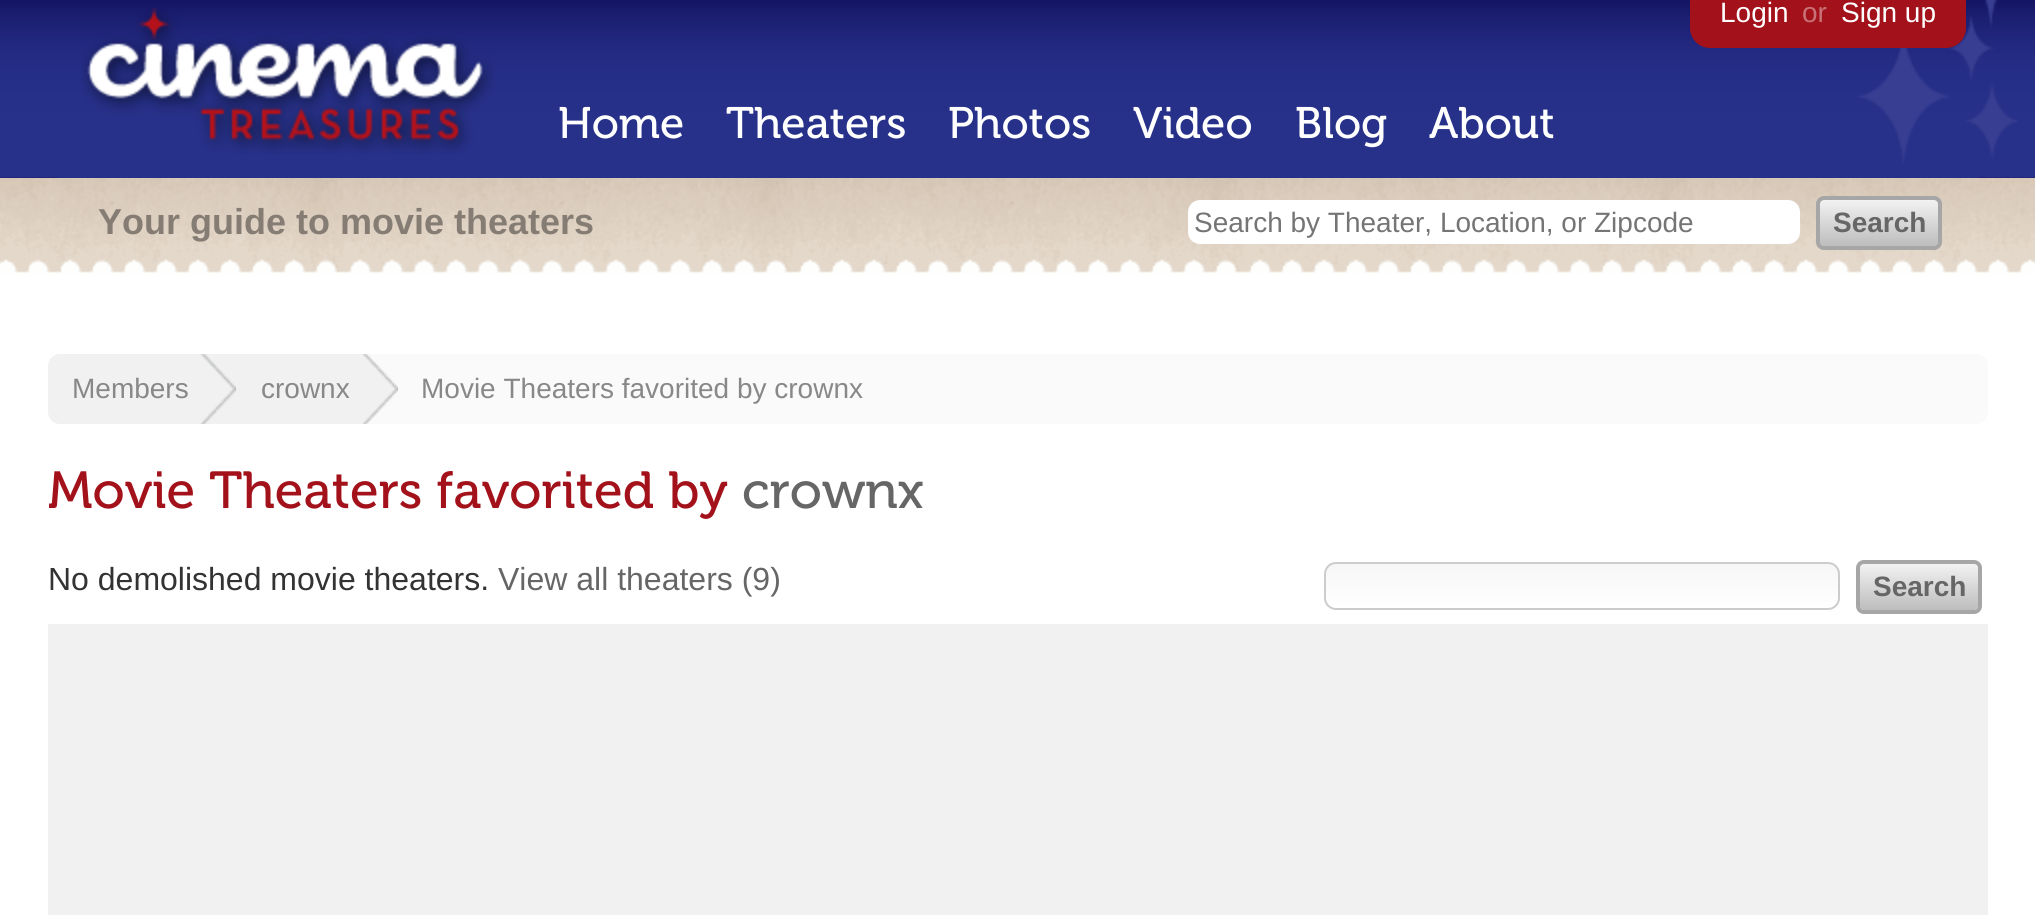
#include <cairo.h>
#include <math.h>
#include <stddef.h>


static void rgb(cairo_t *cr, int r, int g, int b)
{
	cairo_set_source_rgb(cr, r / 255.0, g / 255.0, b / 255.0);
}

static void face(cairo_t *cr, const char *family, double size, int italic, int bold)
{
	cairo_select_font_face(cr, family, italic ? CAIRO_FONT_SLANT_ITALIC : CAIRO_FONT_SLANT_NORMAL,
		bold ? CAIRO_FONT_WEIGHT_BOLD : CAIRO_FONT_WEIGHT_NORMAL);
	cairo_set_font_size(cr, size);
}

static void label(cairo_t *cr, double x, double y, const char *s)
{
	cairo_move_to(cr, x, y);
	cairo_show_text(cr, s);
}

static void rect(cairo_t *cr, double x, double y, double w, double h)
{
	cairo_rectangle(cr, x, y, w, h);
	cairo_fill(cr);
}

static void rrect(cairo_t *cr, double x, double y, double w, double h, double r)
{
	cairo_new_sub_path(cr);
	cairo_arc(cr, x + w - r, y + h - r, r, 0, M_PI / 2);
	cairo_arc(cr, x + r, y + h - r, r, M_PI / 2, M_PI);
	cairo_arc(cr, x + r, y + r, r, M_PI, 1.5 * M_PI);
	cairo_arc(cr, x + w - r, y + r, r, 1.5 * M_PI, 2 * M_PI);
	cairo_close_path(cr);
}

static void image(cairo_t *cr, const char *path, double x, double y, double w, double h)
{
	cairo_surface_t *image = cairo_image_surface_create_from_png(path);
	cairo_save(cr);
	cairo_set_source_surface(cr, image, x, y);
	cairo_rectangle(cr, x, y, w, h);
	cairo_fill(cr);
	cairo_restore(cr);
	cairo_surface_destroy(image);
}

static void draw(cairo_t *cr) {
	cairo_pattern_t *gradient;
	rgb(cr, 255, 255, 255);
	cairo_paint(cr);
	image(cr, "image0.png", 0, 0, 2035, 178);
	rgb(cr, 39, 49, 138);
	rect(cr, 58, 177, 1920, 1);
	image(cr, "image1.png", 81, 7, 413, 147);
	face(cr, "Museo", 44, 0, 0);
	rgb(cr, 255, 255, 255);
	label(cr, 558, 138, "Home");
	label(cr, 726, 138, "Theaters");
	label(cr, 948, 138, "Photos");
	label(cr, 1133, 138, "Video");
	label(cr, 1295, 138, "Blog");
	label(cr, 1429, 138, "About");
	image(cr, "image2.png", 1857, 0, 161, 163);
	rgb(cr, 163, 18, 27);
	cairo_new_path(cr);
	cairo_move_to(cr, 1690, -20);
	cairo_line_to(cr, 1966, -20);
	cairo_line_to(cr, 1966, 28);
	cairo_curve_to(cr, 1966, 39, 1957, 48, 1946, 48);
	cairo_line_to(cr, 1710, 48);
	cairo_curve_to(cr, 1699, 48, 1690, 39, 1690, 28);
	cairo_close_path(cr);
	cairo_fill(cr);
	face(cr, "Liberation Sans", 28, 0, 0);
	rgb(cr, 255, 255, 255);
	label(cr, 1720, 22, "Login");
	rgb(cr, 200, 113, 118);
	label(cr, 1802, 22, "or");
	rgb(cr, 255, 255, 255);
	label(cr, 1841, 22, "Sign up");
	image(cr, "image3.png", 0, 178, 2035, 96);
	face(cr, "Liberation Sans", 36, 0, 1);
	rgb(cr, 133, 125, 116);
	label(cr, 98, 234, "Your guide to movie theaters");
	rgb(cr, 255, 255, 255);
	rrect(cr, 1188, 200, 612, 44, 12);
	cairo_fill(cr);
	face(cr, "Liberation Sans", 28, 0, 0);
	rgb(cr, 117, 117, 117);
	label(cr, 1194, 232, "Search by Theater, Location, or Zipcode");
	gradient = cairo_pattern_create_linear(1879, 200, 1879, 246);
	cairo_pattern_add_color_stop_rgba(gradient, 0, 0.949, 0.949, 0.949, 1);
	cairo_pattern_add_color_stop_rgba(gradient, 1, 0.741, 0.741, 0.741, 1);
	cairo_set_source(cr, gradient);
	cairo_pattern_destroy(gradient);
	rrect(cr, 1820, 200, 118, 46, 4);
	cairo_fill(cr);
	rrect(cr, 1818, 198, 122, 50, 6);
	rgb(cr, 166, 166, 166);
	cairo_set_line_width(cr, 4);
	cairo_stroke(cr);
	face(cr, "Liberation Sans", 28, 0, 1);
	rgb(cr, 102, 102, 102);
	label(cr, 1833, 232, "Search");
	rgb(cr, 250, 250, 250);
	rrect(cr, 48, 354, 1940, 70, 12);
	cairo_fill(cr);
	rgb(cr, 241, 241, 241);
	cairo_new_path(cr);
	cairo_move_to(cr, 60, 354);
	cairo_line_to(cr, 236, 354);
	cairo_line_to(cr, 236, 424);
	cairo_line_to(cr, 60, 424);
	cairo_curve_to(cr, 53.5, 424, 48, 418.5, 48, 412);
	cairo_line_to(cr, 48, 366);
	cairo_curve_to(cr, 48, 359.5, 53.5, 354, 60, 354);
	cairo_close_path(cr);
	cairo_fill(cr);
	image(cr, "image4.png", 200, 354, 36, 70);
	face(cr, "Liberation Sans", 28, 0, 0);
	rgb(cr, 136, 136, 136);
	label(cr, 72, 398, "Members");
	rgb(cr, 241, 241, 241);
	rect(cr, 236, 354, 162, 70);
	image(cr, "image5.png", 362, 354, 36, 70);
	rgb(cr, 136, 136, 136);
	label(cr, 261, 398, "crownx");
	label(cr, 421, 398, "Movie Theaters favorited by crownx");
	face(cr, "Museo", 52, 0, 0);
	rgb(cr, 163, 18, 27);
	label(cr, 48, 508, "Movie Theaters favorited by");
	rgb(cr, 102, 102, 102);
	label(cr, 742, 508, "crownx");
	face(cr, "Liberation Sans", 32, 0, 0);
	rgb(cr, 51, 51, 51);
	label(cr, 48, 590, "No demolished movie theaters.");
	rgb(cr, 102, 102, 102);
	label(cr, 498, 590, "View all theaters (9)");
	cairo_save(cr);
	rrect(cr, 1324, 562, 516, 48, 12);
	cairo_clip(cr);
	gradient = cairo_pattern_create_linear(1582, 564, 1582, 608);
	cairo_pattern_add_color_stop_rgba(gradient, 0, 0.965, 0.965, 0.965, 1);
	cairo_pattern_add_color_stop_rgba(gradient, 1, 1, 1, 1, 1);
	cairo_set_source(cr, gradient);
	cairo_pattern_destroy(gradient);
	rect(cr, 1324, 564, 516, 44);
	cairo_restore(cr);
	rrect(cr, 1325, 563, 514, 46, 11);
	rgb(cr, 204, 204, 204);
	cairo_set_line_width(cr, 2);
	cairo_stroke(cr);
	gradient = cairo_pattern_create_linear(1919, 564, 1919, 610);
	cairo_pattern_add_color_stop_rgba(gradient, 0, 0.949, 0.949, 0.949, 1);
	cairo_pattern_add_color_stop_rgba(gradient, 1, 0.741, 0.741, 0.741, 1);
	cairo_set_source(cr, gradient);
	cairo_pattern_destroy(gradient);
	rrect(cr, 1860, 564, 118, 46, 4);
	cairo_fill(cr);
	rrect(cr, 1858, 562, 122, 50, 6);
	rgb(cr, 166, 166, 166);
	cairo_set_line_width(cr, 4);
	cairo_stroke(cr);
	face(cr, "Liberation Sans", 28, 0, 1);
	rgb(cr, 102, 102, 102);
	label(cr, 1873, 596, "Search");
	rgb(cr, 241, 241, 241);
	rect(cr, 48, 624, 1940, 291);
}

int main(void) {
	cairo_surface_t *surface = cairo_image_surface_create(CAIRO_FORMAT_RGB24, 2035, 915);
	cairo_t *cr = cairo_create(surface);
	cairo_font_options_t *options = cairo_font_options_create();
	cairo_font_options_set_hint_metrics(options, CAIRO_HINT_METRICS_OFF);
	cairo_font_options_set_hint_style(options, CAIRO_HINT_STYLE_NONE);
	cairo_set_font_options(cr, options);
	cairo_set_miter_limit(cr, 4);
	draw(cr);
	cairo_surface_write_to_png(surface, "render.png");
	cairo_font_options_destroy(options);
	cairo_destroy(cr);
	cairo_surface_destroy(surface);
	return 0;
}
